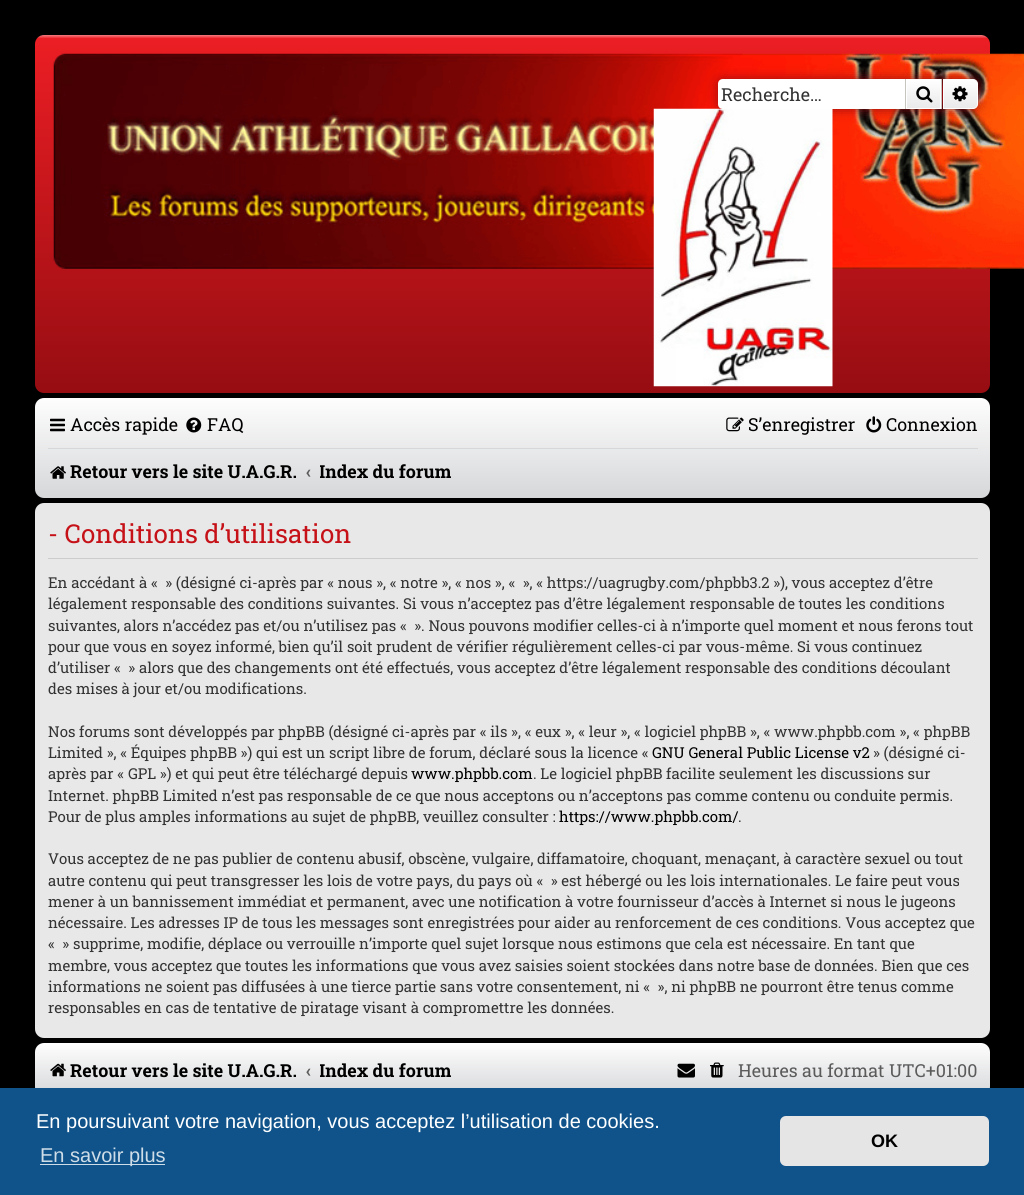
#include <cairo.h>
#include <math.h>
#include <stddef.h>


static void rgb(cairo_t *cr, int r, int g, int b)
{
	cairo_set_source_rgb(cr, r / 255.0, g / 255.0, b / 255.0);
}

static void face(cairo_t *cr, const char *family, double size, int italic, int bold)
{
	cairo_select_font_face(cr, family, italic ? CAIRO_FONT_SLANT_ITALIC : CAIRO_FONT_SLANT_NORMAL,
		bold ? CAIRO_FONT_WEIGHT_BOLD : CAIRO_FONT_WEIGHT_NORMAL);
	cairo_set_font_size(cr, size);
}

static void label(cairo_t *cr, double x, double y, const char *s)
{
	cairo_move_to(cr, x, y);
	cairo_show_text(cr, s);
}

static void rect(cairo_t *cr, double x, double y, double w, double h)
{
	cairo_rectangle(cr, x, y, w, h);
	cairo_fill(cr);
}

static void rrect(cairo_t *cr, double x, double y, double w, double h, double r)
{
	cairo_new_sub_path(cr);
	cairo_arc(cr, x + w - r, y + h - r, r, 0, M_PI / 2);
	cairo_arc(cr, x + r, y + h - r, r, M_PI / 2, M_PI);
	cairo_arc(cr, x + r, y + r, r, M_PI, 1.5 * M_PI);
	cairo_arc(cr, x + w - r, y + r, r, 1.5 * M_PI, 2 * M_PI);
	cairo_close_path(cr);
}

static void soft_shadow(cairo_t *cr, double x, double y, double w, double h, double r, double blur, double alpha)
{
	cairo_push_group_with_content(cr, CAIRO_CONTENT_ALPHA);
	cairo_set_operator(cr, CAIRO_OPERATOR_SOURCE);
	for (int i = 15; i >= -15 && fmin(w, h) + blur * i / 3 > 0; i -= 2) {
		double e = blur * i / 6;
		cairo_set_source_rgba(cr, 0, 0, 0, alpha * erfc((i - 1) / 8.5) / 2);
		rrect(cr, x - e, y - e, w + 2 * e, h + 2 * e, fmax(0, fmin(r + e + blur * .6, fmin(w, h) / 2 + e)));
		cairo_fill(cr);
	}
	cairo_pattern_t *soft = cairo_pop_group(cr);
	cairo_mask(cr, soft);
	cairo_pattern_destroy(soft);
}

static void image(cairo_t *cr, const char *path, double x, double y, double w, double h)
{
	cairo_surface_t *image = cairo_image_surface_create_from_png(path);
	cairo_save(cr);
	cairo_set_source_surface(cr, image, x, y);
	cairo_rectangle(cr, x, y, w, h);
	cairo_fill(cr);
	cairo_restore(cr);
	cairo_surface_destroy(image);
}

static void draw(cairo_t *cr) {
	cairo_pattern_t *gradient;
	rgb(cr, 0, 0, 0);
	cairo_paint(cr);
	gradient = cairo_pattern_create_linear(513, 35, 513, 393);
	cairo_pattern_add_color_stop_rgba(gradient, 0, 0.957, 0.486, 0.502, 1);
	cairo_pattern_add_color_stop_rgba(gradient, 0.01, 0.922, 0.118, 0.141, 1);
	cairo_pattern_add_color_stop_rgba(gradient, 1, 0.588, 0.051, 0.071, 1);
	cairo_set_source(cr, gradient);
	cairo_pattern_destroy(gradient);
	rrect(cr, 35, 35, 955, 358, 9);
	cairo_fill(cr);
	image(cr, "image0.png", 53, 53, 971, 216);
	rgb(cr, 150, 13, 18);
	soft_shadow(cr, 718, 79, 260, 30, 5, 6, 1);
	rgb(cr, 255, 255, 255);
	cairo_new_path(cr);
	cairo_move_to(cr, 723, 79);
	cairo_line_to(cr, 905, 79);
	cairo_line_to(cr, 905, 109);
	cairo_line_to(cr, 723, 109);
	cairo_curve_to(cr, 720, 109, 718, 107, 718, 104);
	cairo_line_to(cr, 718, 84);
	cairo_curve_to(cr, 718, 81, 720, 79, 723, 79);
	cairo_close_path(cr);
	cairo_fill(cr);
	face(cr, "Roboto Slab", 17.9, 0, 0);
	rgb(cr, 51, 51, 51);
	label(cr, 721, 101, "Recherche…");
	gradient = cairo_pattern_create_linear(924, 79, 924, 109);
	cairo_pattern_add_color_stop_rgba(gradient, 0, 1, 1, 1, 1);
	cairo_pattern_add_color_stop_rgba(gradient, 1, 0.914, 0.914, 0.914, 1);
	cairo_set_source(cr, gradient);
	cairo_pattern_destroy(gradient);
	rect(cr, 907, 80, 33, 28);
	cairo_rectangle(cr, 906.5, 79.5, 34, 29);
	rgb(cr, 255, 255, 255);
	cairo_set_line_width(cr, 1);
	cairo_stroke(cr);
	rgb(cr, 199, 195, 191);
	rect(cr, 941, 79, 1, 30);
	rect(cr, 905, 79, 1, 30);
	image(cr, "image1.png", 916, 86, 17, 17);
	gradient = cairo_pattern_create_linear(960, 79, 960, 109);
	cairo_pattern_add_color_stop_rgba(gradient, 0, 1, 1, 1, 1);
	cairo_pattern_add_color_stop_rgba(gradient, 1, 0.914, 0.914, 0.914, 1);
	cairo_set_source(cr, gradient);
	cairo_pattern_destroy(gradient);
	cairo_new_path(cr);
	cairo_move_to(cr, 943.5, 79.5);
	cairo_line_to(cr, 973, 79.5);
	cairo_curve_to(cr, 975.5, 79.5, 977.5, 81.5, 977.5, 84);
	cairo_line_to(cr, 977.5, 104);
	cairo_curve_to(cr, 977.5, 106.5, 975.5, 108.5, 973, 108.5);
	cairo_line_to(cr, 943.5, 108.5);
	cairo_close_path(cr);
	cairo_fill_preserve(cr);
	rgb(cr, 255, 255, 255);
	cairo_stroke(cr);
	image(cr, "image2.png", 952, 86, 16, 16);
	image(cr, "image3.png", 653, 108, 180, 279);
	gradient = cairo_pattern_create_linear(513, 397, 513, 498);
	cairo_pattern_add_color_stop_rgba(gradient, 0, 0.996, 0.996, 0.996, 1);
	cairo_pattern_add_color_stop_rgba(gradient, 1, 0.839, 0.843, 0.851, 1);
	cairo_set_source(cr, gradient);
	cairo_pattern_destroy(gradient);
	rrect(cr, 35, 398, 955, 100, 9);
	cairo_fill(cr);
	image(cr, "image4.png", 50, 418, 15, 14);
	rgb(cr, 0, 0, 0);
	label(cr, 70, 431, "Accès rapide");
	image(cr, "image5.png", 186, 417, 16, 16);
	label(cr, 207, 431, "FAQ");
	image(cr, "image6.png", 726, 417, 18, 15);
	label(cr, 748, 431, "S’enregistrer");
	image(cr, "image7.png", 866, 416, 16, 17);
	label(cr, 886, 431, "Connexion");
	rgb(cr, 214, 215, 217);
	rect(cr, 48, 448, 930, 1);
	image(cr, "image8.png", 50, 466, 16, 13);
	face(cr, "Roboto Slab", 17.9, 0, 1);
	rgb(cr, 0, 0, 0);
	label(cr, 70, 478, "Retour vers le site U.A.G.R.");
	rgb(cr, 91, 91, 91);
	label(cr, 306, 478, "‹");
	cairo_save(cr);
	cairo_rectangle(cr, 320, 453, 131, 38);
	cairo_clip(cr);
	rgb(cr, 0, 0, 0);
	label(cr, 319, 478, "Index du forum");
	cairo_restore(cr);
	rgb(cr, 232, 232, 232);
	rrect(cr, 35, 503, 955, 535, 9);
	cairo_fill(cr);
	rgb(cr, 204, 204, 204);
	rect(cr, 48, 558, 930, 1);
	face(cr, "Roboto Slab", 26, 0, 0);
	rgb(cr, 197, 17, 23);
	label(cr, 48, 543, "- Conditions d’utilisation");
	face(cr, "Roboto Slab", 15, 0, 0);
	rgb(cr, 51, 51, 51);
	label(cr, 48, 588, "En accédant à «  » (désigné ci-après par « nous », « notre », « nos », «  », « https://uagrugby.com/phpbb3.2 »), vous acceptez d’être");
	label(cr, 48, 609, "légalement responsable des conditions suivantes. Si vous n’acceptez pas d’être légalement responsable de toutes les conditions");
	label(cr, 48, 631, "suivantes, alors n’accédez pas et/ou n’utilisez pas «  ». Nous pouvons modifier celles-ci à n’importe quel moment et nous ferons tout");
	label(cr, 48, 652, "pour que vous en soyez informé, bien qu’il soit prudent de vérifier régulièrement celles-ci par vous-même. Si vous continuez");
	label(cr, 48, 673, "d’utiliser «  » alors que des changements ont été effectués, vous acceptez d’être légalement responsable des conditions découlant");
	label(cr, 48, 694, "des mises à jour et/ou modifications.");
	label(cr, 48, 737, "Nos forums sont développés par phpBB (désigné ci-après par « ils », « eux », « leur », « logiciel phpBB », « www.phpbb.com », « phpBB");
	label(cr, 48, 758, "Limited », « Équipes phpBB ») qui est un script libre de forum, déclaré sous la licence «");
	rgb(cr, 0, 0, 0);
	label(cr, 652, 758, "GNU General Public License v2");
	rgb(cr, 51, 51, 51);
	label(cr, 873, 758, "» (désigné ci-");
	label(cr, 48, 779, "après par « GPL ») et qui peut être téléchargé depuis");
	rgb(cr, 0, 0, 0);
	label(cr, 411, 779, "www.phpbb.com");
	rgb(cr, 51, 51, 51);
	label(cr, 533, 779, ". Le logiciel phpBB facilite seulement les discussions sur");
	label(cr, 48, 801, "Internet. phpBB Limited n’est pas responsable de ce que nous acceptons ou n’acceptons pas comme contenu ou conduite permis.");
	label(cr, 48, 822, "Pour de plus amples informations au sujet de phpBB, veuillez consulter :");
	rgb(cr, 0, 0, 0);
	label(cr, 559, 822, "https://www.phpbb.com/");
	rgb(cr, 51, 51, 51);
	label(cr, 738, 822, ".");
	label(cr, 48, 864, "Vous acceptez de ne pas publier de contenu abusif, obscène, vulgaire, diffamatoire, choquant, menaçant, à caractère sexuel ou tout");
	label(cr, 48, 886, "autre contenu qui peut transgresser les lois de votre pays, du pays où «  » est hébergé ou les lois internationales. Le faire peut vous");
	label(cr, 48, 907, "mener à un bannissement immédiat et permanent, avec une notification à votre fournisseur d’accès à Internet si nous le jugeons");
	label(cr, 48, 928, "nécessaire. Les adresses IP de tous les messages sont enregistrées pour aider au renforcement de ces conditions. Vous acceptez que");
	label(cr, 48, 949, "«  » supprime, modifie, déplace ou verrouille n’importe quel sujet lorsque nous estimons que cela est nécessaire. En tant que");
	label(cr, 48, 971, "membre, vous acceptez que toutes les informations que vous avez saisies soient stockées dans notre base de données. Bien que ces");
	label(cr, 48, 992, "informations ne soient pas diffusées à une tierce partie sans votre consentement, ni «  », ni phpBB ne pourront être tenus comme");
	label(cr, 48, 1013, "responsables en cas de tentative de piratage visant à compromettre les données.");
	gradient = cairo_pattern_create_linear(513, 1043, 513, 1096);
	cairo_pattern_add_color_stop_rgba(gradient, 0, 0.996, 0.996, 0.996, 1);
	cairo_pattern_add_color_stop_rgba(gradient, 1, 0.839, 0.843, 0.851, 1);
	cairo_set_source(cr, gradient);
	cairo_pattern_destroy(gradient);
	rrect(cr, 35, 1043, 955, 53, 9);
	cairo_fill(cr);
	image(cr, "image9.png", 50, 1063, 16, 14);
	face(cr, "Roboto Slab", 17.9, 0, 1);
	rgb(cr, 0, 0, 0);
	label(cr, 70, 1077, "Retour vers le site U.A.G.R.");
	rgb(cr, 91, 91, 91);
	label(cr, 306, 1077, "‹");
	cairo_save(cr);
	cairo_rectangle(cr, 320, 1050, 131, 40);
	cairo_clip(cr);
	rgb(cr, 0, 0, 0);
	label(cr, 319, 1077, "Index du forum");
	cairo_restore(cr);
	image(cr, "image10.png", 677, 1063, 18, 15);
	image(cr, "image11.png", 710, 1062, 14, 16);
	face(cr, "Roboto Slab", 17.9, 0, 0);
	label(cr, 738, 1077, "Heures au format UTC+01:00");
	rgb(cr, 15, 83, 138);
	rect(cr, 0, 1088, 1024, 107);
	face(cr, "Liberation Sans", 20, 0, 0);
	rgb(cr, 255, 255, 255);
	label(cr, 36, 1128, "En poursuivant votre navigation, vous acceptez l’utilisation de cookies.");
	rgb(cr, 207, 221, 232);
	rect(cr, 40, 1164, 125, 1);
	label(cr, 40, 1162, "En savoir plus");
	rgb(cr, 229, 229, 229);
	rrect(cr, 780, 1116, 209, 50, 6);
	cairo_fill(cr);
	face(cr, "Liberation Sans", 18, 0, 1);
	rgb(cr, 0, 0, 0);
	label(cr, 871, 1147, "OK");
}

int main(void) {
	cairo_surface_t *surface = cairo_image_surface_create(CAIRO_FORMAT_RGB24, 1024, 1195);
	cairo_t *cr = cairo_create(surface);
	cairo_font_options_t *options = cairo_font_options_create();
	cairo_font_options_set_hint_metrics(options, CAIRO_HINT_METRICS_OFF);
	cairo_font_options_set_hint_style(options, CAIRO_HINT_STYLE_NONE);
	cairo_set_font_options(cr, options);
	cairo_set_miter_limit(cr, 4);
	draw(cr);
	cairo_surface_write_to_png(surface, "render.png");
	cairo_font_options_destroy(options);
	cairo_destroy(cr);
	cairo_surface_destroy(surface);
	return 0;
}
